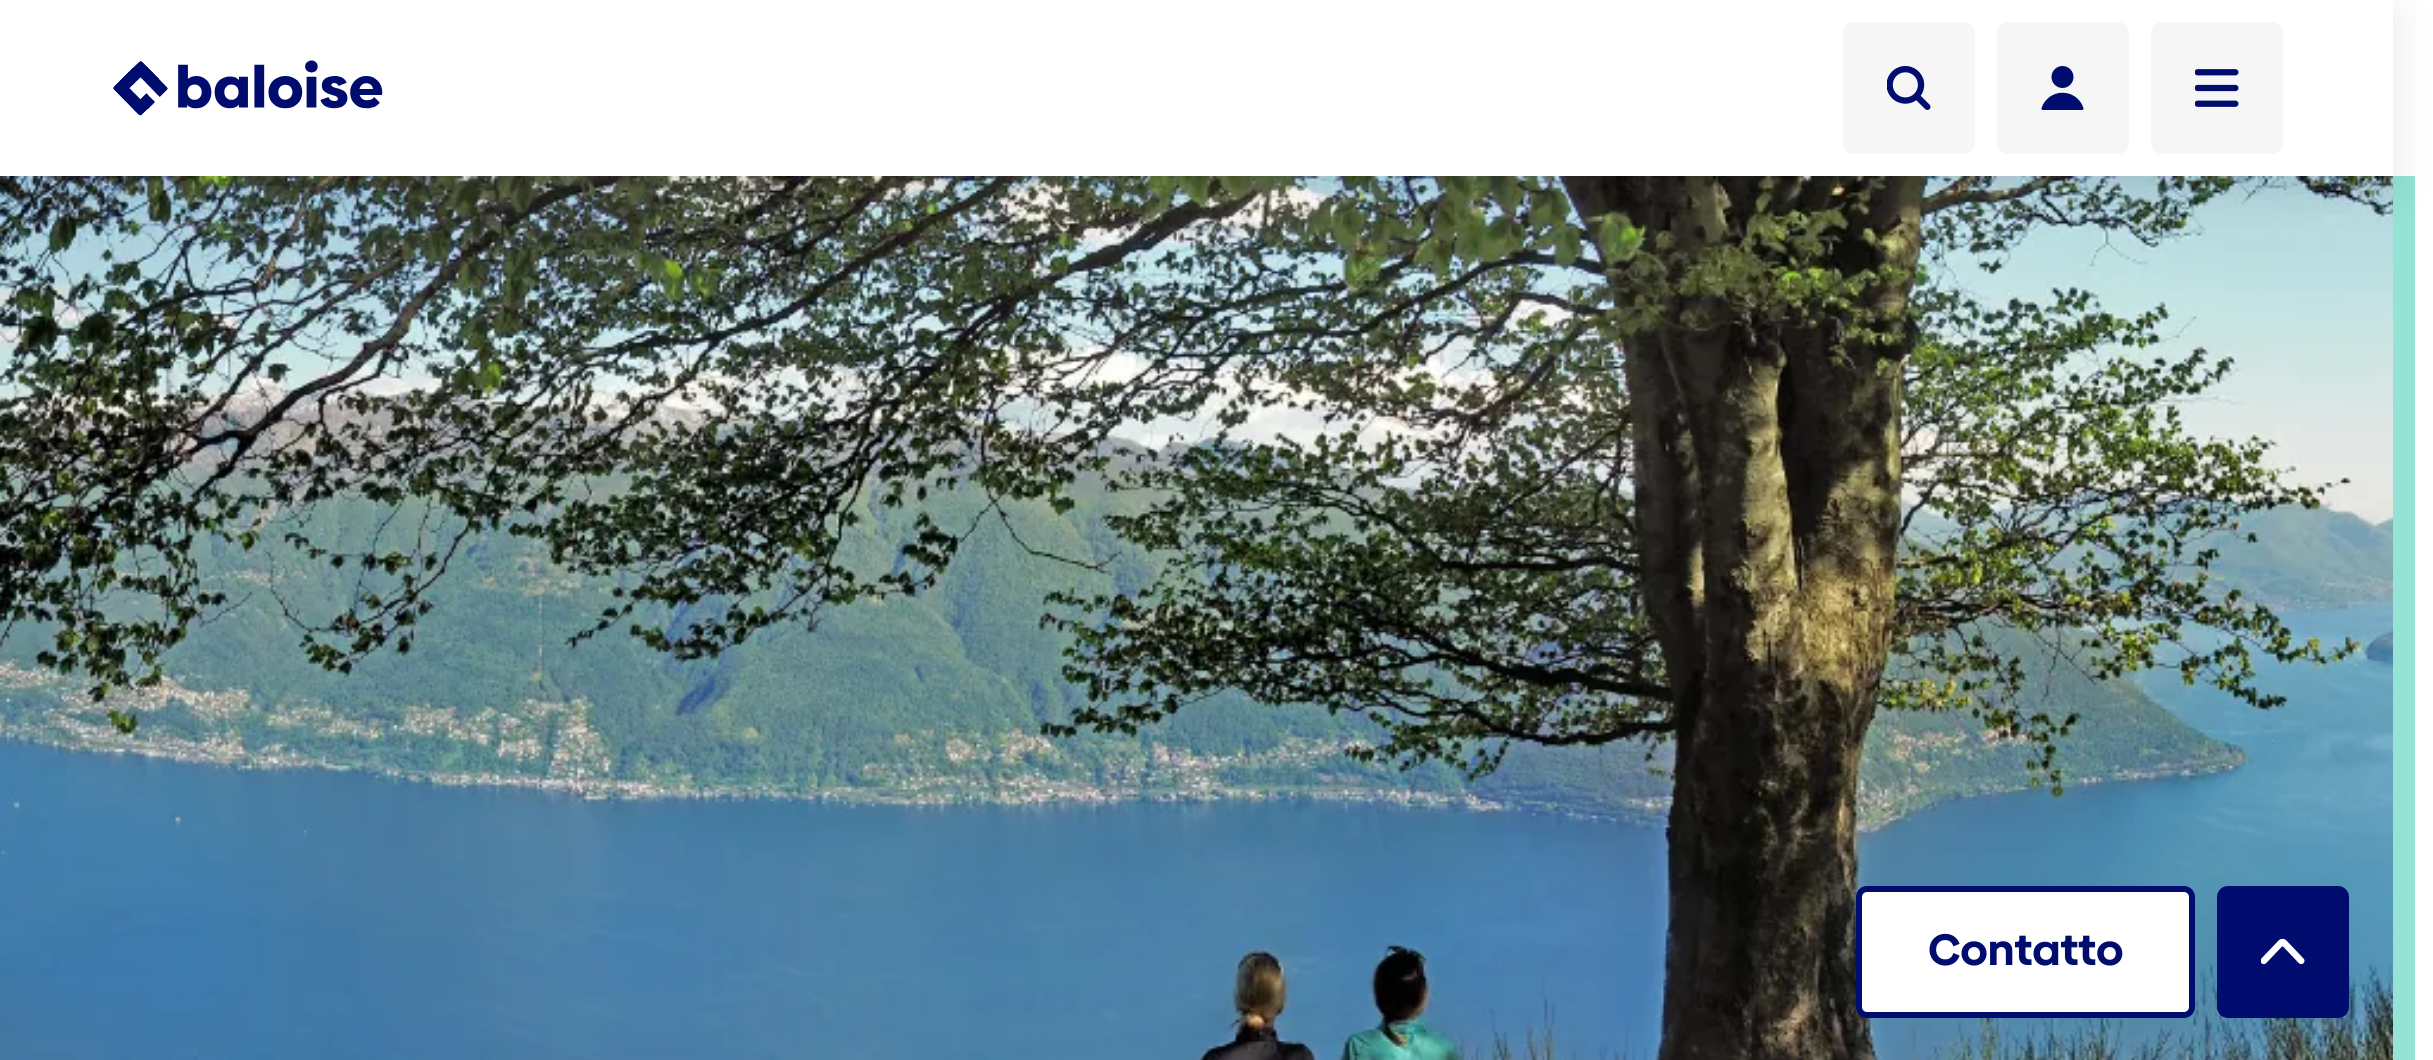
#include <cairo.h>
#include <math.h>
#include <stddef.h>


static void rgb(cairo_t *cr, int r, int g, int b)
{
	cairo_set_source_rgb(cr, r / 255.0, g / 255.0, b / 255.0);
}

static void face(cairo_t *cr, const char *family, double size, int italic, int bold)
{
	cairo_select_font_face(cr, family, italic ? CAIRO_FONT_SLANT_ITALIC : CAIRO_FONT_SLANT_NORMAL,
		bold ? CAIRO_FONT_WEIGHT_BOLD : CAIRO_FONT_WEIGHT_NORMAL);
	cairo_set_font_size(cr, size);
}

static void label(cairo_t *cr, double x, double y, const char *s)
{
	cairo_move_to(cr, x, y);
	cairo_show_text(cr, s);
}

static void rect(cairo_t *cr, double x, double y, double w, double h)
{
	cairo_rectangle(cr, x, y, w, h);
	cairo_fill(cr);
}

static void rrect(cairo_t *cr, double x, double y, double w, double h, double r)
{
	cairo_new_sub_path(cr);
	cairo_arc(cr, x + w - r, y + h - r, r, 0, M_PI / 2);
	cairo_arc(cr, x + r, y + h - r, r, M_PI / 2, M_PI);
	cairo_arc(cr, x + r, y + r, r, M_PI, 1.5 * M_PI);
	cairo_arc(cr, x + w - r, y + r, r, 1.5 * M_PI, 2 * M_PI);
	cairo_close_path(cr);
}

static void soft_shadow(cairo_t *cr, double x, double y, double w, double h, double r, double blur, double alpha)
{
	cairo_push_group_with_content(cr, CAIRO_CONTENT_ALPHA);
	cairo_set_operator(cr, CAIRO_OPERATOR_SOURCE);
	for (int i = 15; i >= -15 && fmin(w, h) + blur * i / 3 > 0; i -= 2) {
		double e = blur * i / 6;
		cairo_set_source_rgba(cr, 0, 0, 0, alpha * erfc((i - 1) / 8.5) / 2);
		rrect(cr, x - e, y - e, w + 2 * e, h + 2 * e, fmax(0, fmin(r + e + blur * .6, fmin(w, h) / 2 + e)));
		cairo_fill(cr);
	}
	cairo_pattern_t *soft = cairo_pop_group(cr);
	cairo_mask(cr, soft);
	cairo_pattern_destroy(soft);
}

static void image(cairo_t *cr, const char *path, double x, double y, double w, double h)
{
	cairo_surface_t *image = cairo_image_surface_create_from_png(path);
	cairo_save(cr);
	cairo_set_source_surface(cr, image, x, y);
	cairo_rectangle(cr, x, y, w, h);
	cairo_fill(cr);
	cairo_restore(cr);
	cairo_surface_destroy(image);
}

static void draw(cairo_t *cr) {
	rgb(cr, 255, 255, 255);
	cairo_paint(cr);
	rgb(cr, 148, 227, 212);
	rect(cr, 2393, 176, 22, 884);
	image(cr, "image4.png", 0, 176, 2393, 884);
	rgb(cr, 0, 0, 0);
	soft_shadow(cr, 0, 14, 2393, 176, 0, 20.5, 0.1);
	rgb(cr, 255, 255, 255);
	rect(cr, 0, 0, 2393, 176);
	image(cr, "image0.png", 113, 60, 270, 56);
	rgb(cr, 246, 246, 246);
	rrect(cr, 1843, 22, 132, 132, 11);
	cairo_fill(cr);
	image(cr, "image1.png", 1887, 66, 44, 44);
	rrect(cr, 1997, 22, 132, 132, 11);
	cairo_fill(cr);
	image(cr, "image2.png", 2041, 66, 43, 44);
	rrect(cr, 2151, 22, 132, 132, 11);
	cairo_fill(cr);
	image(cr, "image3.png", 2195, 69, 44, 38);
	rgb(cr, 255, 255, 255);
	rrect(cr, 1859, 889, 333, 126, 8);
	cairo_fill_preserve(cr);
	rgb(cr, 0, 13, 110);
	cairo_set_line_width(cr, 6);
	cairo_stroke(cr);
	face(cr, "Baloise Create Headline", 44, 0, 1);
	label(cr, 1928, 965, "Contatto");
	rrect(cr, 2220, 889, 126, 126, 8);
	cairo_fill_preserve(cr);
	cairo_stroke(cr);
	image(cr, "image5.png", 2261, 938, 44, 27);
}

int main(void) {
	cairo_surface_t *surface = cairo_image_surface_create(CAIRO_FORMAT_RGB24, 2433, 1060);
	cairo_t *cr = cairo_create(surface);
	cairo_font_options_t *options = cairo_font_options_create();
	cairo_font_options_set_hint_metrics(options, CAIRO_HINT_METRICS_OFF);
	cairo_font_options_set_hint_style(options, CAIRO_HINT_STYLE_NONE);
	cairo_set_font_options(cr, options);
	cairo_set_miter_limit(cr, 4);
	draw(cr);
	cairo_surface_write_to_png(surface, "render.png");
	cairo_font_options_destroy(options);
	cairo_destroy(cr);
	cairo_surface_destroy(surface);
	return 0;
}
